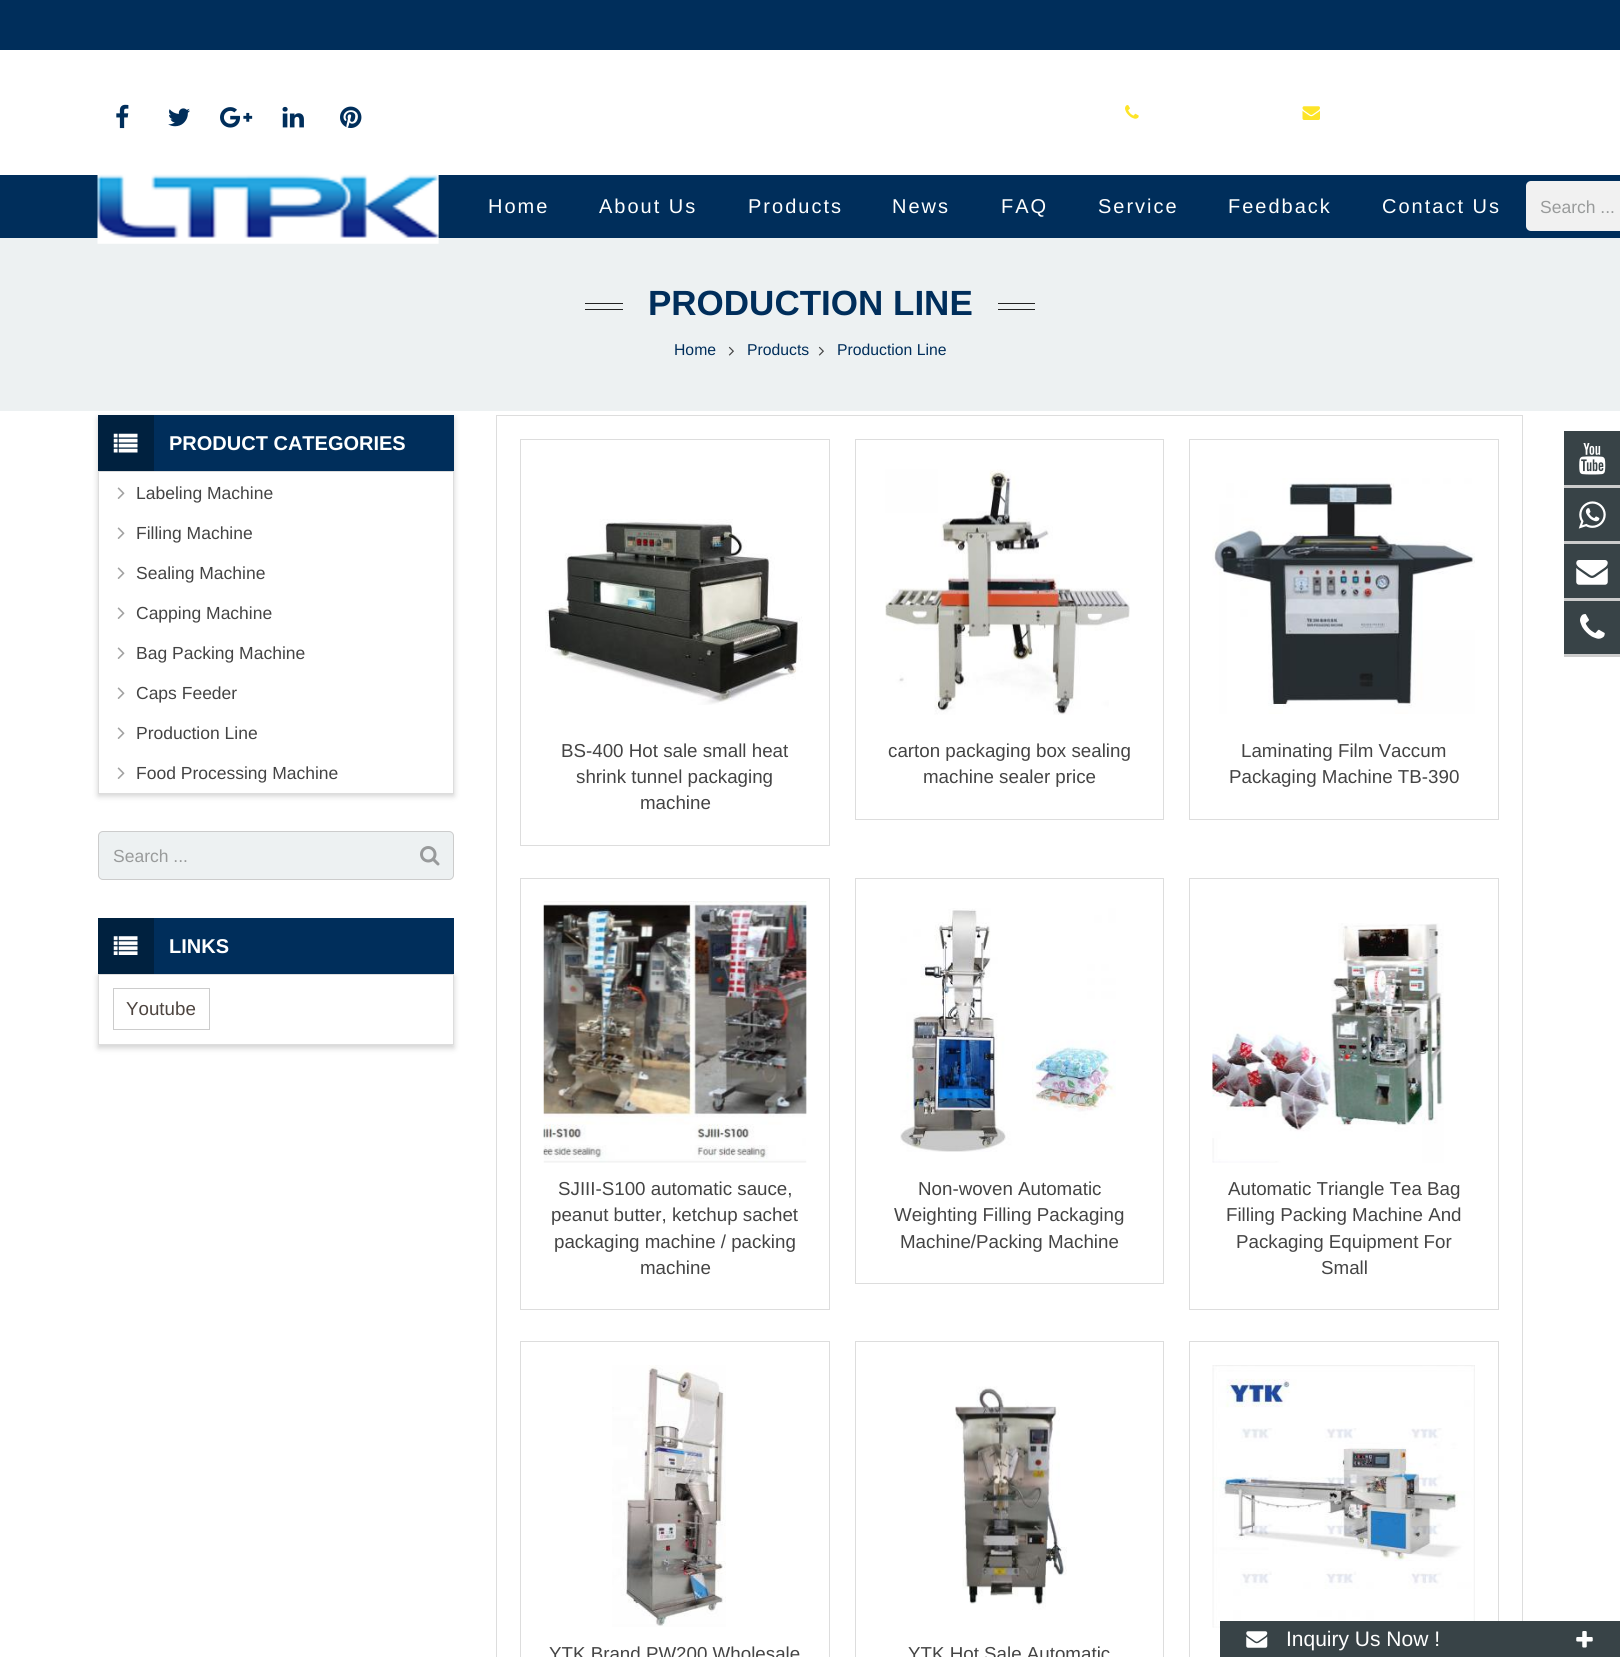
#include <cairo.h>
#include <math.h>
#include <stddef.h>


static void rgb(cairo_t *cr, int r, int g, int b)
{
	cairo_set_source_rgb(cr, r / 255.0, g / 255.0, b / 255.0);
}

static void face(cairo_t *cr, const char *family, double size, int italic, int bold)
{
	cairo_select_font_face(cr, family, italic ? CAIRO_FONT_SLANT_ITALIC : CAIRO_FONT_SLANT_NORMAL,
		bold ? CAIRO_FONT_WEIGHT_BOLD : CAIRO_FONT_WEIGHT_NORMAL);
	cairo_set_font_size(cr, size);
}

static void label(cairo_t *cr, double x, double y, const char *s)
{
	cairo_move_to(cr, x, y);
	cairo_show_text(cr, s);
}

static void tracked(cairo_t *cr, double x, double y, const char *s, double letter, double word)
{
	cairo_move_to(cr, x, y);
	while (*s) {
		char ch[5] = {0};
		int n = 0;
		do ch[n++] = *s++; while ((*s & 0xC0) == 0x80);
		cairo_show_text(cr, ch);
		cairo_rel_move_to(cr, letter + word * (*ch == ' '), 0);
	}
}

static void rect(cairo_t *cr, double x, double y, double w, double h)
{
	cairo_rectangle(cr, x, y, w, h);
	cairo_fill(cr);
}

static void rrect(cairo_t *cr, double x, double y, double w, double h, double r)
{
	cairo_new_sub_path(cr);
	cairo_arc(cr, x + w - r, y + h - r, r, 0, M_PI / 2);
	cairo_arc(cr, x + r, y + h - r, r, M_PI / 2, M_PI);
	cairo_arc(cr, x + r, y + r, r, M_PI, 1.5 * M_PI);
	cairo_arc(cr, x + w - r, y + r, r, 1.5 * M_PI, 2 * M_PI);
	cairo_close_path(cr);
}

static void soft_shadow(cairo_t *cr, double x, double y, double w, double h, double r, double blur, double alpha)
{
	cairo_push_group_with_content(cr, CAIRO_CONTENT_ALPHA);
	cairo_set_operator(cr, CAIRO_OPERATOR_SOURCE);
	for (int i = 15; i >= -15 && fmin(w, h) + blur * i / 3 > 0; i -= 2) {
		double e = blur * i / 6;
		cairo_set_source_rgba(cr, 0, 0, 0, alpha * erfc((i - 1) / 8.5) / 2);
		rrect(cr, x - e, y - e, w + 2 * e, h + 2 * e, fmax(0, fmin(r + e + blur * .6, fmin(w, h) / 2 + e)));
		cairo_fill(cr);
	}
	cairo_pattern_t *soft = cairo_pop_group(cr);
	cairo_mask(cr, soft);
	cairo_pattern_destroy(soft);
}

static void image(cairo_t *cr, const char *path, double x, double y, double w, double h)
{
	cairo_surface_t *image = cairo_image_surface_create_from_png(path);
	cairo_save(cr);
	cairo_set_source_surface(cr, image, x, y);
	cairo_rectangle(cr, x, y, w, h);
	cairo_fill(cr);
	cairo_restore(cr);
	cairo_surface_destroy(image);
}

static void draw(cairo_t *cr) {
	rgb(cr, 255, 255, 255);
	cairo_paint(cr);
	rgb(cr, 0, 46, 91);
	rect(cr, 0, 0, 1620, 50);
	image(cr, "image0.png", 116, 104, 13, 25);
	image(cr, "image1.png", 168, 108, 22, 19);
	image(cr, "image2.png", 220, 107, 33, 21);
	image(cr, "image3.png", 282, 106, 22, 22);
	image(cr, "image4.png", 340, 106, 22, 22);
	image(cr, "image5.png", 1125, 105, 14, 14);
	image(cr, "image6.png", 1302, 106, 18, 14);
	rect(cr, 0, 175, 1620, 63);
	cairo_save(cr);
	cairo_set_fill_rule(cr, CAIRO_FILL_RULE_EVEN_ODD);
	cairo_new_path(cr);
	cairo_move_to(cr, 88, 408);
	cairo_line_to(cr, 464, 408);
	cairo_line_to(cr, 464, 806);
	cairo_line_to(cr, 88, 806);
	cairo_close_path(cr);
	cairo_move_to(cr, 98, 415);
	cairo_line_to(cr, 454, 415);
	cairo_line_to(cr, 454, 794);
	cairo_line_to(cr, 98, 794);
	cairo_close_path(cr);
	cairo_clip(cr);
	rgb(cr, 0, 0, 0);
	soft_shadow(cr, 98, 418, 356, 378, 0, 3, 0.18);
	cairo_restore(cr);
	rgb(cr, 237, 241, 242);
	rect(cr, 0, 238, 1620, 173);
	image(cr, "image7.png", 97, 174, 342, 70);
	face(cr, "Liberation Sans", 20, 0, 0);
	rgb(cr, 255, 255, 255);
	tracked(cr, 488, 213, "Home", 2, 0);
	tracked(cr, 599, 213, "About Us", 2, 0);
	tracked(cr, 748, 213, "Products", 2, 0);
	tracked(cr, 892, 213, "News", 2, 0);
	tracked(cr, 1001, 213, "FAQ", 2, 0);
	tracked(cr, 1098, 213, "Service", 2, 0);
	tracked(cr, 1228, 213, "Feedback", 2, 0);
	tracked(cr, 1382, 213, "Contact Us", 2, 0);
	rgb(cr, 241, 241, 241);
	rrect(cr, 1526, 181, 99, 50, 5);
	cairo_fill(cr);
	face(cr, "Liberation Sans", 17.5, 0, 0);
	rgb(cr, 153, 155, 155);
	label(cr, 1540, 213, "Search ...");
	rgb(cr, 34, 34, 34);
	rect(cr, 585, 303, 38, 1);
	rect(cr, 585, 309, 38, 1);
	face(cr, "Liberation Sans", 35, 0, 1);
	rgb(cr, 0, 46, 91);
	label(cr, 648, 315, "PRODUCTION LINE");
	rgb(cr, 34, 34, 34);
	rect(cr, 998, 303, 37, 1);
	rect(cr, 998, 309, 37, 1);
	face(cr, "Liberation Sans", 15.75, 0, 0);
	rgb(cr, 0, 46, 91);
	label(cr, 674, 355, "Home");
	image(cr, "image8.png", 728, 346, 6, 10);
	label(cr, 747, 355, "Products");
	image(cr, "image8.png", 818, 346, 6, 10);
	label(cr, 837, 355, "Production Line");
	rect(cr, 154, 415, 300, 56);
	rgb(cr, 0, 33, 63);
	rect(cr, 98, 415, 56, 56);
	image(cr, "image9.png", 113, 433, 25, 20);
	face(cr, "Liberation Sans", 20, 0, 1);
	rgb(cr, 255, 255, 255);
	label(cr, 169, 450, "PRODUCT CATEGORIES");
	cairo_rectangle(cr, 98.5, 471.5, 355, 322);
	rgb(cr, 221, 221, 221);
	cairo_set_line_width(cr, 1);
	cairo_stroke(cr);
	image(cr, "image10.png", 117, 487, 8, 12);
	face(cr, "Liberation Sans", 17.5, 0, 0);
	rgb(cr, 68, 68, 68);
	label(cr, 136, 499, "Labeling Machine");
	image(cr, "image10.png", 117, 527, 8, 12);
	label(cr, 136, 539, "Filling Machine");
	image(cr, "image10.png", 117, 567, 8, 12);
	label(cr, 136, 579, "Sealing Machine");
	image(cr, "image10.png", 117, 607, 8, 12);
	label(cr, 136, 619, "Capping Machine");
	image(cr, "image10.png", 117, 647, 8, 12);
	label(cr, 136, 659, "Bag Packing Machine");
	image(cr, "image10.png", 117, 687, 8, 12);
	label(cr, 136, 699, "Caps Feeder");
	image(cr, "image10.png", 117, 727, 8, 12);
	label(cr, 136, 739, "Production Line");
	image(cr, "image10.png", 117, 767, 8, 12);
	label(cr, 136, 779, "Food Processing Machine");
	rgb(cr, 237, 241, 242);
	rrect(cr, 98.5, 831.5, 355, 48, 4.5);
	cairo_fill_preserve(cr);
	rgb(cr, 204, 204, 204);
	cairo_stroke(cr);
	rgb(cr, 153, 155, 155);
	label(cr, 113, 862, "Search ...");
	image(cr, "image11.png", 420, 846, 20, 20);
	cairo_save(cr);
	cairo_set_fill_rule(cr, CAIRO_FILL_RULE_EVEN_ODD);
	cairo_new_path(cr);
	cairo_move_to(cr, 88, 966);
	cairo_line_to(cr, 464, 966);
	cairo_line_to(cr, 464, 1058);
	cairo_line_to(cr, 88, 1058);
	cairo_close_path(cr);
	cairo_move_to(cr, 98, 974);
	cairo_line_to(cr, 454, 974);
	cairo_line_to(cr, 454, 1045);
	cairo_line_to(cr, 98, 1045);
	cairo_close_path(cr);
	cairo_clip(cr);
	rgb(cr, 0, 0, 0);
	soft_shadow(cr, 98, 976, 356, 72, 0, 3, 0.18);
	cairo_restore(cr);
	rgb(cr, 0, 46, 91);
	rect(cr, 154, 918, 300, 56);
	rgb(cr, 0, 33, 63);
	rect(cr, 98, 918, 56, 56);
	image(cr, "image12.png", 113, 936, 25, 19);
	face(cr, "Liberation Sans", 20, 0, 1);
	rgb(cr, 255, 255, 255);
	label(cr, 169, 953, "LINKS");
	cairo_rectangle(cr, 98.5, 974.5, 355, 70);
	rgb(cr, 221, 221, 221);
	cairo_stroke(cr);
	cairo_rectangle(cr, 113.5, 988.5, 96, 41);
	rgb(cr, 204, 204, 204);
	cairo_stroke(cr);
	face(cr, "Liberation Sans", 18.75, 0, 0);
	rgb(cr, 78, 69, 64);
	label(cr, 126, 1015, "Youtube");
	cairo_rectangle(cr, 496.5, 415.5, 1026, 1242);
	rgb(cr, 221, 221, 221);
	cairo_stroke(cr);
	cairo_rectangle(cr, 520.5, 439.5, 309, 406);
	cairo_stroke(cr);
	image(cr, "image13.png", 545, 519, 258, 186);
	rgb(cr, 68, 68, 68);
	label(cr, 561, 757, "BS-400 Hot sale small heat");
	label(cr, 576, 783, "shrink tunnel packaging");
	label(cr, 640, 809, "machine");
	cairo_rectangle(cr, 855.5, 439.5, 308, 380);
	rgb(cr, 221, 221, 221);
	cairo_stroke(cr);
	image(cr, "image14.png", 885, 469, 245, 246);
	rgb(cr, 68, 68, 68);
	label(cr, 888, 757, "carton packaging box sealing");
	label(cr, 923, 783, "machine sealer price");
	cairo_rectangle(cr, 1189.5, 439.5, 309, 380);
	rgb(cr, 221, 221, 221);
	cairo_stroke(cr);
	image(cr, "image15.png", 1212, 478, 263, 236);
	rgb(cr, 68, 68, 68);
	label(cr, 1241, 757, "Laminating Film Vaccum");
	label(cr, 1229, 783, "Packaging Machine TB-390");
	cairo_rectangle(cr, 520.5, 878.5, 309, 431);
	rgb(cr, 221, 221, 221);
	cairo_stroke(cr);
	image(cr, "image16.png", 543, 901, 264, 262);
	rgb(cr, 68, 68, 68);
	label(cr, 558, 1195, "SJIII-S100 automatic sauce,");
	label(cr, 551, 1221, "peanut butter, ketchup sachet");
	label(cr, 554, 1248, "packaging machine / packing");
	label(cr, 640, 1274, "machine");
	cairo_rectangle(cr, 855.5, 878.5, 308, 405);
	rgb(cr, 221, 221, 221);
	cairo_stroke(cr);
	image(cr, "image17.png", 900, 908, 216, 244);
	rgb(cr, 68, 68, 68);
	label(cr, 918, 1195, "Non-woven Automatic");
	label(cr, 894, 1221, "Weighting Filling Packaging");
	label(cr, 900, 1248, "Machine/Packing Machine");
	cairo_rectangle(cr, 1189.5, 878.5, 309, 431);
	rgb(cr, 221, 221, 221);
	cairo_stroke(cr);
	image(cr, "image18.png", 1212, 923, 232, 240);
	rgb(cr, 68, 68, 68);
	label(cr, 1228, 1195, "Automatic Triangle Tea Bag");
	label(cr, 1226, 1221, "Filling Packing Machine And");
	label(cr, 1236, 1248, "Packaging Equipment For");
	label(cr, 1321, 1274, "Small");
	cairo_rectangle(cr, 520.5, 1341.5, 309, 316);
	rgb(cr, 221, 221, 221);
	cairo_stroke(cr);
	image(cr, "image19.png", 612, 1365, 114, 262);
	rgb(cr, 68, 68, 68);
	label(cr, 549, 1660, "YTK Brand PW200 Wholesale");
	cairo_rectangle(cr, 855.5, 1341.5, 308, 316);
	rgb(cr, 221, 221, 221);
	cairo_stroke(cr);
	image(cr, "image20.png", 955, 1386, 112, 224);
	rgb(cr, 68, 68, 68);
	label(cr, 908, 1660, "YTK Hot Sale Automatic");
	cairo_rectangle(cr, 1189.5, 1341.5, 309, 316);
	rgb(cr, 221, 221, 221);
	cairo_stroke(cr);
	image(cr, "image21.png", 1212, 1365, 263, 263);
	rgb(cr, 56, 67, 71);
	rect(cr, 1564, 431, 56, 223);
	rgb(cr, 204, 204, 204);
	rect(cr, 1564, 485, 56, 3);
	image(cr, "image22.png", 1579, 443, 27, 32);
	rect(cr, 1564, 541, 56, 3);
	image(cr, "image23.png", 1578, 501, 28, 28);
	rect(cr, 1564, 598, 56, 3);
	image(cr, "image24.png", 1576, 560, 32, 25);
	rect(cr, 1564, 654, 56, 3);
	image(cr, "image25.png", 1580, 614, 25, 25);
	rgb(cr, 56, 67, 71);
	rect(cr, 1220, 1621, 400, 36);
	image(cr, "image26.png", 1246, 1631, 22, 17);
	face(cr, "Liberation Sans", 21, 0, 0);
	rgb(cr, 255, 255, 255);
	label(cr, 1286, 1646, "Inquiry Us Now !");
	image(cr, "image27.png", 1576, 1631, 17, 17);
}

int main(void) {
	cairo_surface_t *surface = cairo_image_surface_create(CAIRO_FORMAT_RGB24, 1620, 1657);
	cairo_t *cr = cairo_create(surface);
	cairo_font_options_t *options = cairo_font_options_create();
	cairo_font_options_set_hint_metrics(options, CAIRO_HINT_METRICS_OFF);
	cairo_font_options_set_hint_style(options, CAIRO_HINT_STYLE_NONE);
	cairo_set_font_options(cr, options);
	cairo_set_miter_limit(cr, 4);
	draw(cr);
	cairo_surface_write_to_png(surface, "render.png");
	cairo_font_options_destroy(options);
	cairo_destroy(cr);
	cairo_surface_destroy(surface);
	return 0;
}
